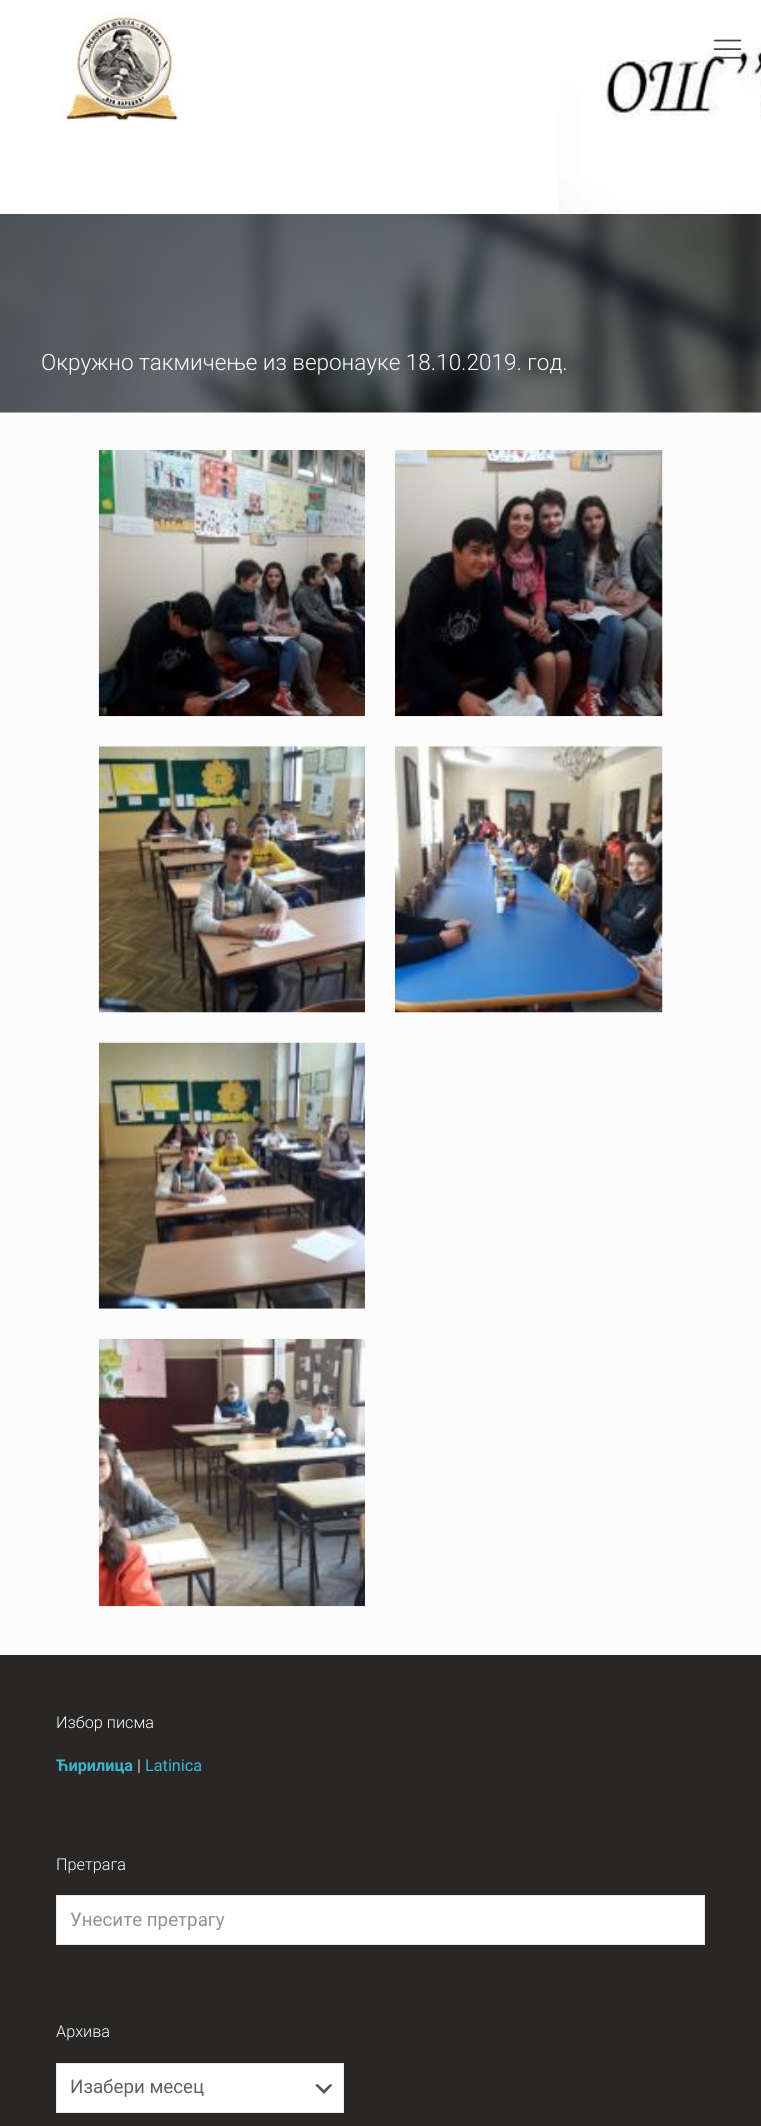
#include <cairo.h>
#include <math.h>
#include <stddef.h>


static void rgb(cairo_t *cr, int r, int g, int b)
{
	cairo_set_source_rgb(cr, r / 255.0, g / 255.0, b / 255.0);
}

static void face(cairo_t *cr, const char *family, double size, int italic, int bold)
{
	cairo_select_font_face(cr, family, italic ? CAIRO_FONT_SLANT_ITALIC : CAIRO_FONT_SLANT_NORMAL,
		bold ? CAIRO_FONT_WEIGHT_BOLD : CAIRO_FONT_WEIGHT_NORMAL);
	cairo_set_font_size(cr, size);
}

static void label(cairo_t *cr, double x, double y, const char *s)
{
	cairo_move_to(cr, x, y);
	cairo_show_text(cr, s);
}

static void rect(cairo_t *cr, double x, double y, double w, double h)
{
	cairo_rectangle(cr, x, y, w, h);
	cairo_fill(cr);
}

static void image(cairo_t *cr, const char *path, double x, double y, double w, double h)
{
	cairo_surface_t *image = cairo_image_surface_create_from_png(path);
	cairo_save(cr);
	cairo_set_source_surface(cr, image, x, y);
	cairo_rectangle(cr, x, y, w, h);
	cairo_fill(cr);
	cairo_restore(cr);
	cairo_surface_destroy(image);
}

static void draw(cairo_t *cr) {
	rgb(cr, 252, 252, 252);
	cairo_paint(cr);
	rgb(cr, 255, 255, 255);
	rect(cr, 0, 412, 761, 1);
	image(cr, "image0.png", 0, 214, 761, 199);
	rect(cr, 0, 0, 761, 214);
	image(cr, "image1.png", 558, 46, 203, 168);
	image(cr, "image2.png", 62, 12, 121, 113);
	image(cr, "image3.png", 713, 39, 29, 20);
	face(cr, "Roboto Light", 22.5, 0, 0);
	label(cr, 41, 370, "Окружно такмичење из веронауке 18.10.2019. год.");
	image(cr, "image4.png", 98, 450, 267, 267);
	image(cr, "image5.png", 395, 450, 268, 267);
	image(cr, "image6.png", 98, 746, 267, 267);
	image(cr, "image7.png", 395, 746, 268, 267);
	image(cr, "image8.png", 98, 1042, 267, 267);
	image(cr, "image9.png", 98, 1338, 267, 269);
	rgb(cr, 40, 39, 38);
	rect(cr, 0, 1655, 761, 471);
	face(cr, "Roboto Light", 16.25, 0, 0);
	rgb(cr, 255, 255, 255);
	label(cr, 56, 1728, "Избор писма");
	face(cr, "Roboto", 16.25, 0, 1);
	rgb(cr, 60, 181, 208);
	label(cr, 56, 1771, "Ћирилица");
	face(cr, "Roboto", 16.25, 0, 0);
	rgb(cr, 204, 204, 204);
	label(cr, 137, 1771, "|");
	rgb(cr, 60, 181, 208);
	label(cr, 145, 1771, "Latinica");
	face(cr, "Roboto Light", 16.25, 0, 0);
	rgb(cr, 255, 255, 255);
	label(cr, 56, 1870, "Претрага");
	cairo_rectangle(cr, 56.5, 1895.5, 648, 49);
	cairo_fill_preserve(cr);
	rgb(cr, 235, 235, 235);
	cairo_set_line_width(cr, 1);
	cairo_stroke(cr);
	face(cr, "Roboto", 18.75, 0, 0);
	rgb(cr, 146, 146, 146);
	label(cr, 70, 1926, "Унесите претрагу");
	face(cr, "Roboto Light", 16.25, 0, 0);
	rgb(cr, 255, 255, 255);
	label(cr, 56, 2037, "Архива");
	rect(cr, 57, 2064, 286, 48);
	rgb(cr, 85, 85, 85);
	cairo_new_path(cr);
	cairo_move_to(cr, 317.5, 2084);
	cairo_line_to(cr, 324, 2090);
	cairo_line_to(cr, 330, 2084);
	cairo_line_to(cr, 332.5, 2085);
	cairo_line_to(cr, 324, 2094);
	cairo_line_to(cr, 315, 2085);
	cairo_close_path(cr);
	cairo_fill(cr);
	cairo_rectangle(cr, 56.5, 2063.5, 287, 49);
	rgb(cr, 235, 235, 235);
	cairo_stroke(cr);
	face(cr, "Roboto", 18.75, 0, 0);
	rgb(cr, 98, 98, 98);
	label(cr, 70, 2093, "Изабери месец");
}

int main(void) {
	cairo_surface_t *surface = cairo_image_surface_create(CAIRO_FORMAT_RGB24, 761, 2126);
	cairo_t *cr = cairo_create(surface);
	cairo_font_options_t *options = cairo_font_options_create();
	cairo_font_options_set_hint_metrics(options, CAIRO_HINT_METRICS_OFF);
	cairo_font_options_set_hint_style(options, CAIRO_HINT_STYLE_NONE);
	cairo_set_font_options(cr, options);
	cairo_set_miter_limit(cr, 4);
	draw(cr);
	cairo_surface_write_to_png(surface, "render.png");
	cairo_font_options_destroy(options);
	cairo_destroy(cr);
	cairo_surface_destroy(surface);
	return 0;
}
